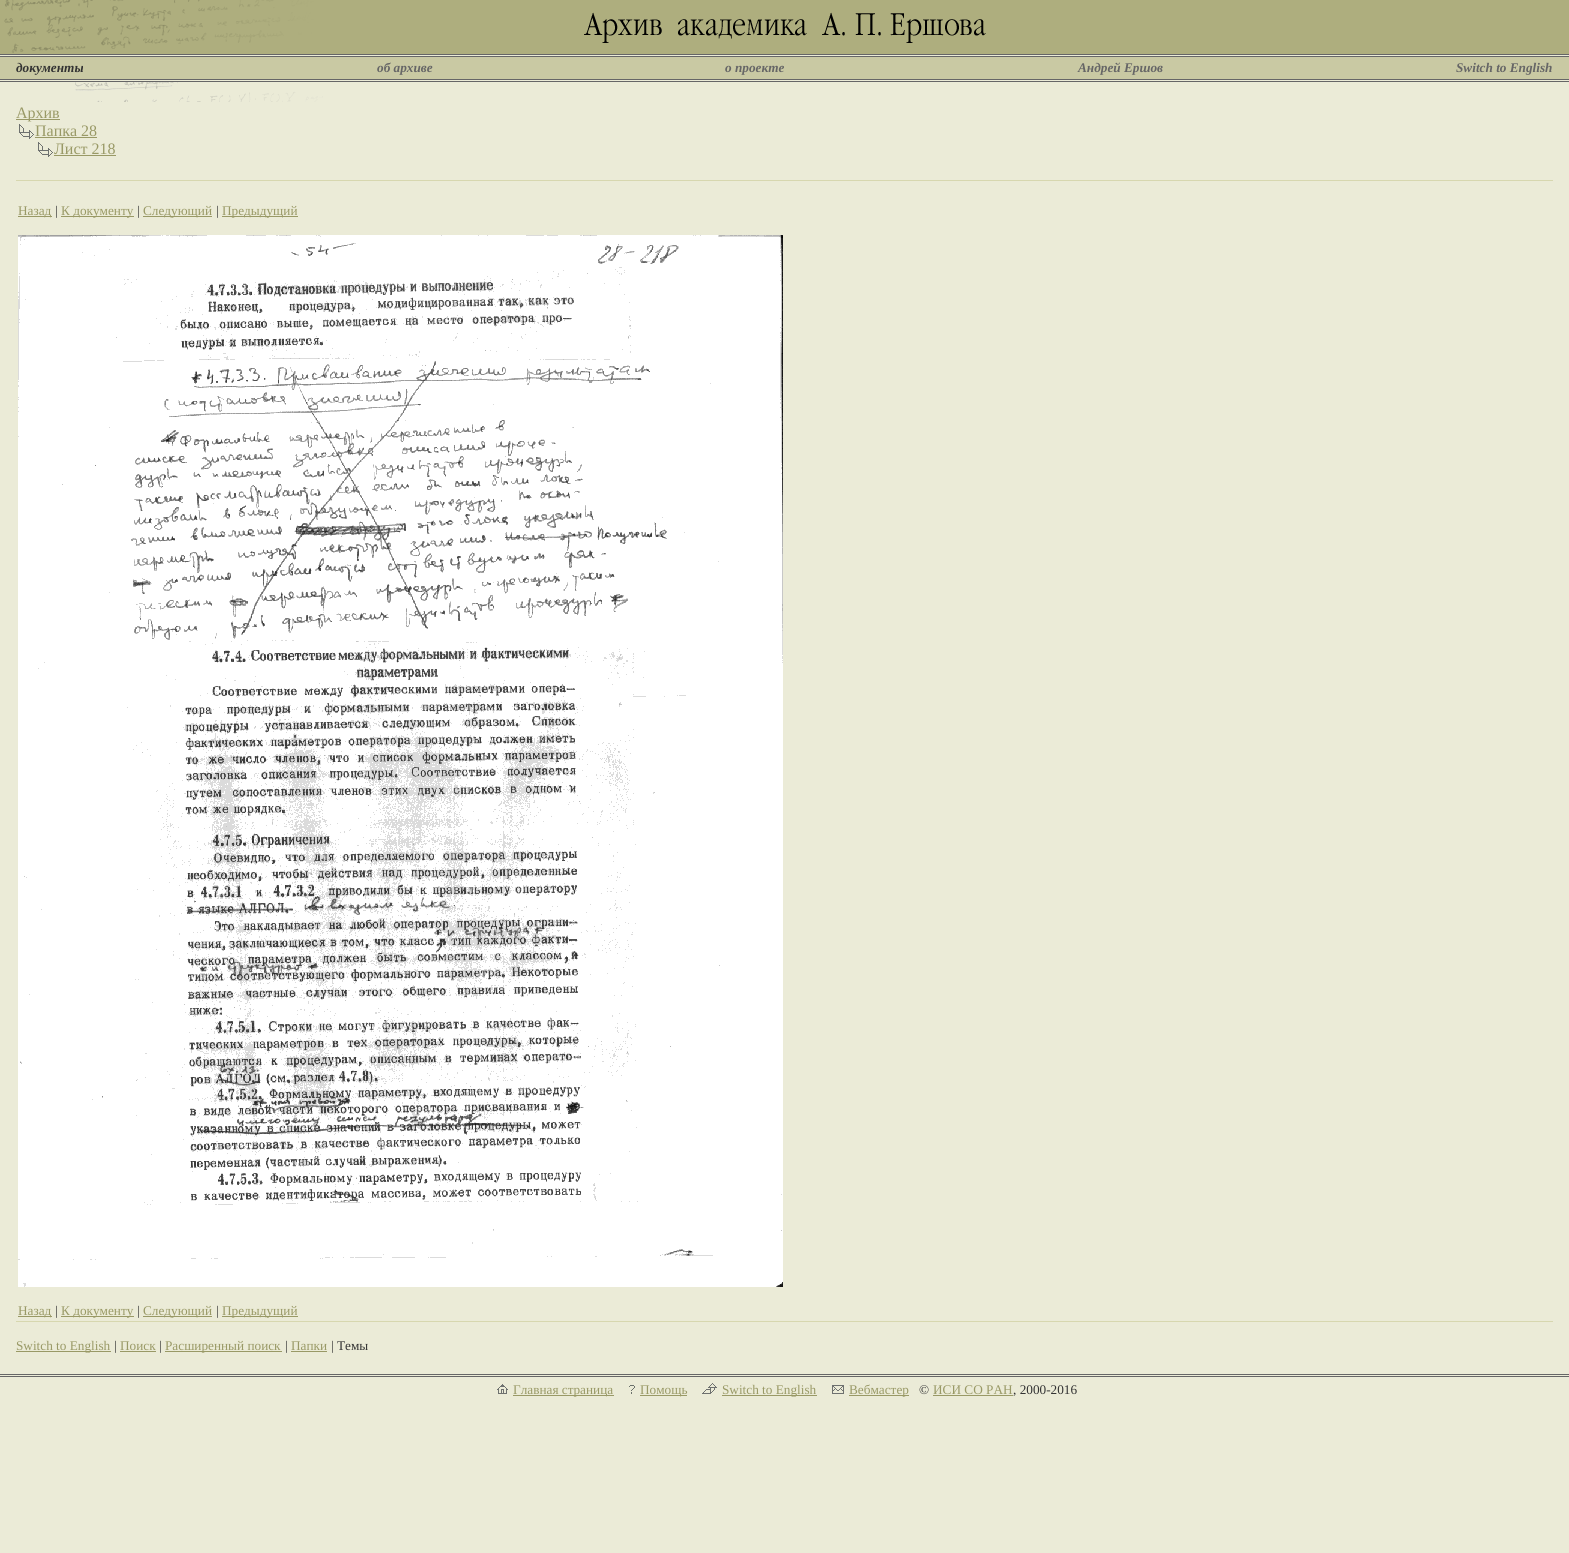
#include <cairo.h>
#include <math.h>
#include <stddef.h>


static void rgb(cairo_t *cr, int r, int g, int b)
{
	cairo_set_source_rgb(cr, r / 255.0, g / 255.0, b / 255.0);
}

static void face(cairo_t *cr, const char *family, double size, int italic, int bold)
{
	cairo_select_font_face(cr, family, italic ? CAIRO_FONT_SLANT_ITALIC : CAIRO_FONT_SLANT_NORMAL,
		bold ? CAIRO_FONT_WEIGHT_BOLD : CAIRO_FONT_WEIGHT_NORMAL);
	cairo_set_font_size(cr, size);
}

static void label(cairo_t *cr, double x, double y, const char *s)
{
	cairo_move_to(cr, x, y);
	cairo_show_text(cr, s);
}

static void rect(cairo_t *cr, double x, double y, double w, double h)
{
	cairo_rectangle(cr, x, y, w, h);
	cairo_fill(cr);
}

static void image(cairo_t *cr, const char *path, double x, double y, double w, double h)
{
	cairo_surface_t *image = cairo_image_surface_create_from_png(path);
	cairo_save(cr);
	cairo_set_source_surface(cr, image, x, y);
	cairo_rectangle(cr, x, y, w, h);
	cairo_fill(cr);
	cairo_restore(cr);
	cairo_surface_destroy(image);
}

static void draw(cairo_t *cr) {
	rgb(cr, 235, 235, 215);
	cairo_paint(cr);
	image(cr, "image0.png", 0, 0, 1569, 54);
	image(cr, "image1.png", 584, 12, 402, 31);
	rgb(cr, 102, 102, 102);
	rect(cr, 0, 54, 1569, 1);
	rect(cr, 0, 56, 1569, 1);
	rgb(cr, 201, 201, 163);
	rect(cr, 0, 57, 1569, 22);
	face(cr, "Liberation Serif", 13.25, 1, 1);
	rgb(cr, 51, 51, 51);
	label(cr, 16, 72, "документы");
	rgb(cr, 102, 102, 102);
	label(cr, 377, 72, "об архиве");
	label(cr, 725, 72, "о проекте");
	label(cr, 1078, 72, "Андрей Ершов");
	label(cr, 1456, 72, "Switch to English");
	rect(cr, 0, 79, 1569, 1);
	rect(cr, 0, 81, 1569, 1);
	image(cr, "image2.png", 75, 82, 248, 20);
	rgb(cr, 153, 153, 102);
	rect(cr, 16, 119, 44, 1);
	face(cr, "Liberation Serif", 16, 0, 0);
	label(cr, 16, 118, "Архив");
	image(cr, "image3.png", 19, 124, 15, 15);
	label(cr, 35, 136, "Папка 28");
	rect(cr, 35, 137, 62, 1);
	image(cr, "image3.png", 38, 142, 15, 15);
	label(cr, 54, 154, "Лист 218");
	rect(cr, 54, 155, 62, 1);
	rgb(cr, 215, 215, 175);
	rect(cr, 16, 180, 1537, 1);
	rgb(cr, 153, 153, 102);
	rect(cr, 18, 216, 34, 1);
	face(cr, "Liberation Serif", 13.25, 0, 0);
	label(cr, 18, 215, "Назад");
	rgb(cr, 51, 51, 51);
	label(cr, 55, 215, "|");
	rgb(cr, 153, 153, 102);
	rect(cr, 61, 216, 73, 1);
	label(cr, 61, 215, "К документу");
	rgb(cr, 51, 51, 51);
	label(cr, 137, 215, "|");
	rgb(cr, 153, 153, 102);
	rect(cr, 143, 216, 69, 1);
	label(cr, 143, 215, "Следующий");
	rgb(cr, 51, 51, 51);
	label(cr, 216, 215, "|");
	rgb(cr, 153, 153, 102);
	rect(cr, 222, 216, 76, 1);
	label(cr, 222, 215, "Предыдущий");
	image(cr, "image4.png", 18, 235, 765, 1052);
	rect(cr, 18, 1316, 34, 1);
	label(cr, 18, 1315, "Назад");
	rgb(cr, 51, 51, 51);
	label(cr, 55, 1315, "|");
	rgb(cr, 153, 153, 102);
	rect(cr, 61, 1316, 73, 1);
	label(cr, 61, 1315, "К документу");
	rgb(cr, 51, 51, 51);
	label(cr, 137, 1315, "|");
	rgb(cr, 153, 153, 102);
	rect(cr, 143, 1316, 69, 1);
	label(cr, 143, 1315, "Следующий");
	rgb(cr, 51, 51, 51);
	label(cr, 216, 1315, "|");
	rgb(cr, 153, 153, 102);
	rect(cr, 222, 1316, 76, 1);
	label(cr, 222, 1315, "Предыдущий");
	rgb(cr, 215, 215, 175);
	rect(cr, 16, 1321, 1537, 1);
	rgb(cr, 153, 153, 102);
	rect(cr, 16, 1351, 95, 1);
	label(cr, 16, 1350, "Switch to English");
	rgb(cr, 51, 51, 51);
	label(cr, 114, 1350, "|");
	rgb(cr, 153, 153, 102);
	label(cr, 120, 1350, "Поиск");
	rect(cr, 120, 1351, 36, 1);
	rgb(cr, 51, 51, 51);
	label(cr, 159, 1350, "|");
	rgb(cr, 153, 153, 102);
	rect(cr, 165, 1351, 117, 1);
	label(cr, 165, 1350, "Расширенный поиск");
	rgb(cr, 51, 51, 51);
	label(cr, 285, 1350, "|");
	rgb(cr, 153, 153, 102);
	label(cr, 291, 1350, "Папки");
	rect(cr, 291, 1351, 36, 1);
	rgb(cr, 51, 51, 51);
	label(cr, 331, 1350, "| Темы");
	rgb(cr, 102, 102, 102);
	rect(cr, 0, 1374, 1569, 1);
	rect(cr, 0, 1376, 1569, 1);
	image(cr, "image5.png", 497, 1384, 11, 10);
	rgb(cr, 153, 153, 102);
	rect(cr, 513, 1395, 101, 1);
	label(cr, 513, 1394, "Главная страница");
	image(cr, "image6.png", 629, 1385, 6, 9);
	rect(cr, 640, 1395, 47, 1);
	label(cr, 640, 1394, "Помощь");
	image(cr, "image7.png", 702, 1383, 15, 11);
	rect(cr, 722, 1395, 95, 1);
	label(cr, 722, 1394, "Switch to English");
	image(cr, "image8.png", 832, 1385, 12, 9);
	rect(cr, 849, 1395, 60, 1);
	label(cr, 849, 1394, "Вебмастер");
	rgb(cr, 51, 51, 51);
	label(cr, 919, 1394, "©");
	rgb(cr, 153, 153, 102);
	label(cr, 933, 1394, "ИСИ СО РАН");
	rgb(cr, 51, 51, 51);
	label(cr, 1013, 1394, ", 2000-2016");
	rgb(cr, 153, 153, 102);
	rect(cr, 933, 1395, 80, 1);
}

int main(void) {
	cairo_surface_t *surface = cairo_image_surface_create(CAIRO_FORMAT_RGB24, 1569, 1553);
	cairo_t *cr = cairo_create(surface);
	cairo_font_options_t *options = cairo_font_options_create();
	cairo_font_options_set_hint_metrics(options, CAIRO_HINT_METRICS_OFF);
	cairo_font_options_set_hint_style(options, CAIRO_HINT_STYLE_NONE);
	cairo_set_font_options(cr, options);
	cairo_set_miter_limit(cr, 4);
	draw(cr);
	cairo_surface_write_to_png(surface, "render.png");
	cairo_font_options_destroy(options);
	cairo_destroy(cr);
	cairo_surface_destroy(surface);
	return 0;
}
